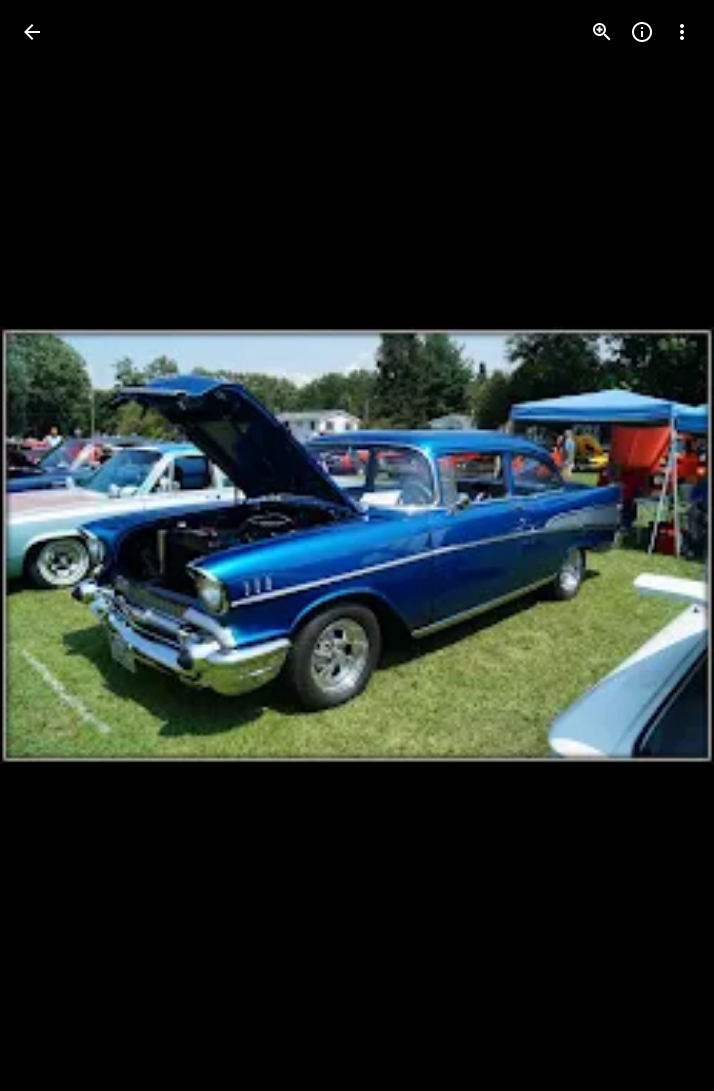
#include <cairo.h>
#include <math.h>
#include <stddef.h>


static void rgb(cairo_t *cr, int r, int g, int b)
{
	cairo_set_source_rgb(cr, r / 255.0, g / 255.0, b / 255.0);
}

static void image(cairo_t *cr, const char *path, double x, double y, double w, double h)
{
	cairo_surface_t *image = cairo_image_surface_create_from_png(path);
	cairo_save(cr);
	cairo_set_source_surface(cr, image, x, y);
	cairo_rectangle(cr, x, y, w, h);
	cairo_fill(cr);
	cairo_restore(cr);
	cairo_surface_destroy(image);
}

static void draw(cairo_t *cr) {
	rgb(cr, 0, 0, 0);
	cairo_paint(cr);
	image(cr, "image0.png", 24, 24, 16, 16);
	image(cr, "image1.png", 593, 23, 18, 18);
	image(cr, "image2.png", 632, 22, 20, 20);
	image(cr, "image3.png", 680, 24, 4, 16);
	image(cr, "image4.png", 0, 327, 714, 437);
}

int main(void) {
	cairo_surface_t *surface = cairo_image_surface_create(CAIRO_FORMAT_RGB24, 714, 1091);
	cairo_t *cr = cairo_create(surface);
	cairo_font_options_t *options = cairo_font_options_create();
	cairo_font_options_set_hint_metrics(options, CAIRO_HINT_METRICS_OFF);
	cairo_font_options_set_hint_style(options, CAIRO_HINT_STYLE_NONE);
	cairo_set_font_options(cr, options);
	cairo_set_miter_limit(cr, 4);
	draw(cr);
	cairo_surface_write_to_png(surface, "render.png");
	cairo_font_options_destroy(options);
	cairo_destroy(cr);
	cairo_surface_destroy(surface);
	return 0;
}
